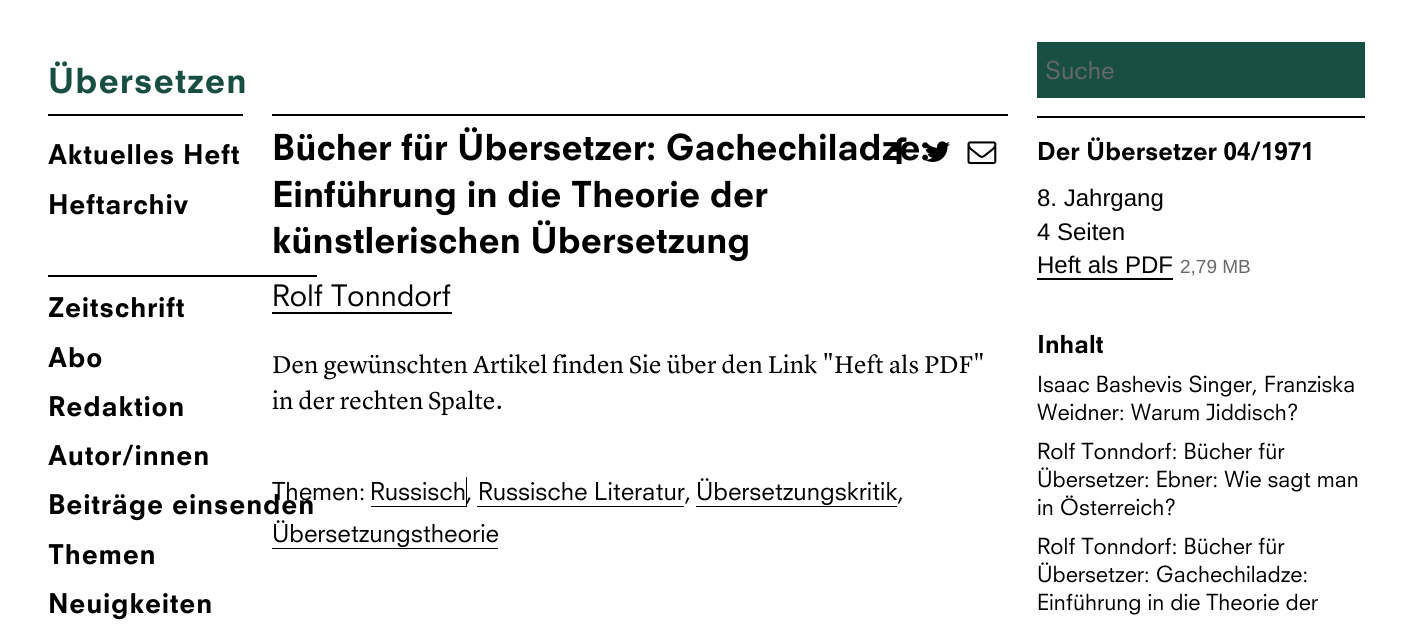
#include <cairo.h>
#include <math.h>
#include <stddef.h>


static void rgb(cairo_t *cr, int r, int g, int b)
{
	cairo_set_source_rgb(cr, r / 255.0, g / 255.0, b / 255.0);
}

static void face(cairo_t *cr, const char *family, double size, int italic, int bold)
{
	cairo_select_font_face(cr, family, italic ? CAIRO_FONT_SLANT_ITALIC : CAIRO_FONT_SLANT_NORMAL,
		bold ? CAIRO_FONT_WEIGHT_BOLD : CAIRO_FONT_WEIGHT_NORMAL);
	cairo_set_font_size(cr, size);
}

static void label(cairo_t *cr, double x, double y, const char *s)
{
	cairo_move_to(cr, x, y);
	cairo_show_text(cr, s);
}

static void tracked(cairo_t *cr, double x, double y, const char *s, double letter, double word)
{
	cairo_move_to(cr, x, y);
	while (*s) {
		char ch[5] = {0};
		int n = 0;
		do ch[n++] = *s++; while ((*s & 0xC0) == 0x80);
		cairo_show_text(cr, ch);
		cairo_rel_move_to(cr, letter + word * (*ch == ' '), 0);
	}
}

static void rect(cairo_t *cr, double x, double y, double w, double h)
{
	cairo_rectangle(cr, x, y, w, h);
	cairo_fill(cr);
}

static void image(cairo_t *cr, const char *path, double x, double y, double w, double h)
{
	cairo_surface_t *image = cairo_image_surface_create_from_png(path);
	cairo_save(cr);
	cairo_set_source_surface(cr, image, x, y);
	cairo_rectangle(cr, x, y, w, h);
	cairo_fill(cr);
	cairo_restore(cr);
	cairo_surface_destroy(image);
}

static void draw(cairo_t *cr) {
	rgb(cr, 255, 255, 255);
	cairo_paint(cr);
	rgb(cr, 0, 0, 0);
	rect(cr, 48, 114, 195, 2);
	face(cr, "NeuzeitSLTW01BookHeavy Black", 33.5, 0, 0);
	rgb(cr, 24, 79, 66);
	tracked(cr, 48, 93, "Übersetzen", 1, 0);
	rgb(cr, 0, 0, 0);
	rect(cr, 48, 275, 269, 2);
	face(cr, "NeuzeitSLTW01BookHeavy Black", 26.4, 0, 0);
	tracked(cr, 48, 164, "Aktuelles Heft", 0.75, 0);
	tracked(cr, 48, 214, "Heftarchiv", 0.75, 0);
	tracked(cr, 48, 317, "Zeitschrift", 0.75, 0);
	tracked(cr, 48, 367, "Abo", 0.75, 0);
	tracked(cr, 48, 416, "Redaktion", 0.75, 0);
	tracked(cr, 48, 465, "Autor/innen", 0.75, 0);
	tracked(cr, 48, 514, "Beiträge einsenden", 0.75, 0);
	tracked(cr, 48, 564, "Themen", 0.75, 0);
	tracked(cr, 48, 613, "Neuigkeiten", 0.75, 0);
	rect(cr, 272, 114, 736, 2);
	face(cr, "NeuzeitSLTW01BookHeavy Black", 34.75, 0, 0);
	label(cr, 272, 160, "Bücher für Übersetzer: Gachechiladze:");
	label(cr, 272, 207, "Einführung in die Theorie der");
	label(cr, 272, 253, "künstlerischen Übersetzung");
	image(cr, "image0.png", 893, 137, 14, 28);
	image(cr, "image1.png", 925, 141, 25, 21);
	image(cr, "image2.png", 967, 141, 30, 24);
	face(cr, "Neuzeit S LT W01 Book", 28.75, 0, 0);
	label(cr, 272, 306, "Rolf Tonndorf");
	rect(cr, 272, 312, 180, 2);
	face(cr, "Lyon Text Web", 25.2, 0, 0);
	label(cr, 272, 373, "Den gewünschten Artikel finden Sie über den Link \"Heft als PDF\"");
	label(cr, 272, 409, "in der rechten Spalte.");
	face(cr, "Neuzeit S LT W01 Book", 24, 0, 0);
	label(cr, 272, 500, "Themen:");
	cairo_new_path(cr);
	cairo_move_to(cr, 371, 506);
	cairo_line_to(cr, 371, 507);
	cairo_line_to(cr, 467, 507);
	cairo_line_to(cr, 467, 477);
	cairo_line_to(cr, 466, 477);
	cairo_line_to(cr, 466, 506);
	cairo_close_path(cr);
	cairo_fill(cr);
	label(cr, 370, 500, "Russisch,");
	label(cr, 478, 500, "Russische Literatur,");
	rect(cr, 477, 506, 207, 1);
	label(cr, 696, 500, "Übersetzungskritik,");
	rect(cr, 696, 506, 201, 1);
	label(cr, 272, 542, "Übersetzungstheorie");
	rect(cr, 272, 548, 226, 1);
	rect(cr, 1037, 116, 328, 2);
	rgb(cr, 24, 79, 66);
	rect(cr, 1037, 42, 328, 56);
	rgb(cr, 104, 104, 104);
	label(cr, 1045, 79, "Suche");
	face(cr, "NeuzeitSLTW01BookHeavy Black", 24, 0, 0);
	rgb(cr, 0, 0, 0);
	label(cr, 1037, 160, "Der Übersetzer 04/1971");
	face(cr, "Liberation Sans", 24, 0, 0);
	label(cr, 1037, 206, "8. Jahrgang");
	label(cr, 1037, 240, "4 Seiten");
	label(cr, 1037, 273, "Heft als PDF");
	rect(cr, 1037, 278, 136, 2);
	face(cr, "Liberation Sans", 19, 0, 0);
	rgb(cr, 104, 104, 104);
	label(cr, 1180, 273, "2,79 MB");
	face(cr, "NeuzeitSLTW01BookHeavy Black", 24, 0, 0);
	rgb(cr, 0, 0, 0);
	label(cr, 1037, 353, "Inhalt");
	face(cr, "Neuzeit S LT W01 Book", 21.6, 0, 0);
	label(cr, 1037, 392, "Isaac Bashevis Singer, Franziska");
	label(cr, 1037, 420, "Weidner: Warum Jiddisch?");
	label(cr, 1037, 459, "Rolf Tonndorf: Bücher für");
	label(cr, 1037, 487, "Übersetzer: Ebner: Wie sagt man");
	label(cr, 1037, 515, "in Österreich?");
	label(cr, 1037, 554, "Rolf Tonndorf: Bücher für");
	label(cr, 1037, 582, "Übersetzer: Gachechiladze:");
	label(cr, 1037, 610, "Einführung in die Theorie der");
}

int main(void) {
	cairo_surface_t *surface = cairo_image_surface_create(CAIRO_FORMAT_RGB24, 1412, 628);
	cairo_t *cr = cairo_create(surface);
	cairo_font_options_t *options = cairo_font_options_create();
	cairo_font_options_set_hint_metrics(options, CAIRO_HINT_METRICS_OFF);
	cairo_font_options_set_hint_style(options, CAIRO_HINT_STYLE_NONE);
	cairo_set_font_options(cr, options);
	cairo_set_miter_limit(cr, 4);
	draw(cr);
	cairo_surface_write_to_png(surface, "render.png");
	cairo_font_options_destroy(options);
	cairo_destroy(cr);
	cairo_surface_destroy(surface);
	return 0;
}
